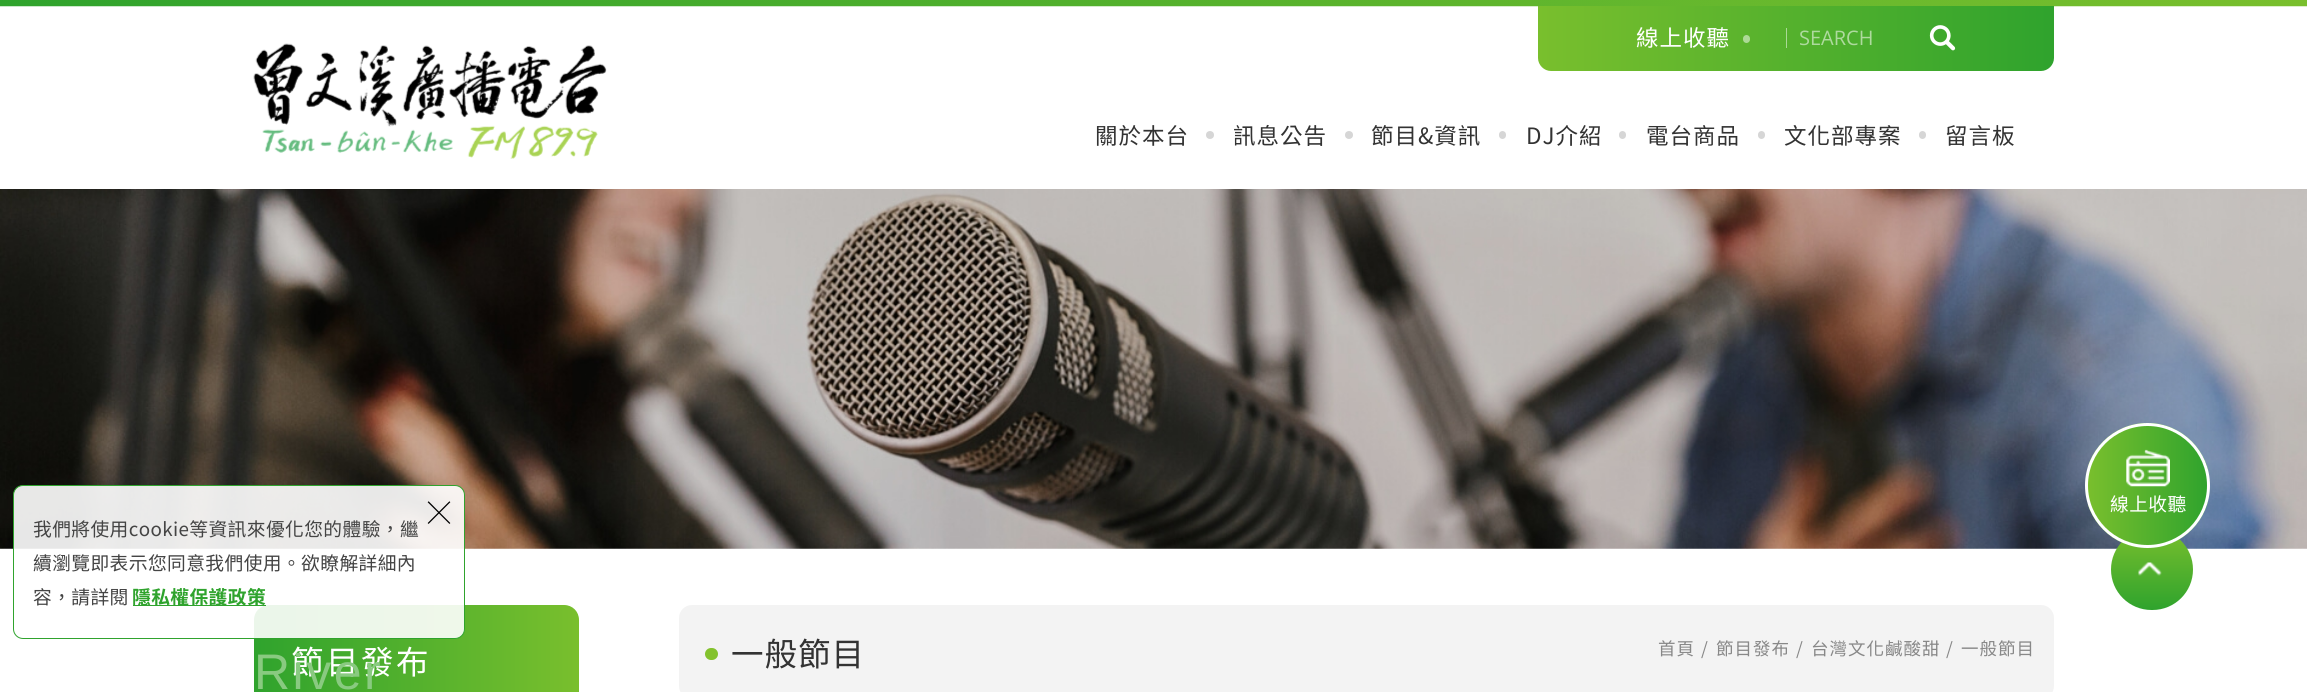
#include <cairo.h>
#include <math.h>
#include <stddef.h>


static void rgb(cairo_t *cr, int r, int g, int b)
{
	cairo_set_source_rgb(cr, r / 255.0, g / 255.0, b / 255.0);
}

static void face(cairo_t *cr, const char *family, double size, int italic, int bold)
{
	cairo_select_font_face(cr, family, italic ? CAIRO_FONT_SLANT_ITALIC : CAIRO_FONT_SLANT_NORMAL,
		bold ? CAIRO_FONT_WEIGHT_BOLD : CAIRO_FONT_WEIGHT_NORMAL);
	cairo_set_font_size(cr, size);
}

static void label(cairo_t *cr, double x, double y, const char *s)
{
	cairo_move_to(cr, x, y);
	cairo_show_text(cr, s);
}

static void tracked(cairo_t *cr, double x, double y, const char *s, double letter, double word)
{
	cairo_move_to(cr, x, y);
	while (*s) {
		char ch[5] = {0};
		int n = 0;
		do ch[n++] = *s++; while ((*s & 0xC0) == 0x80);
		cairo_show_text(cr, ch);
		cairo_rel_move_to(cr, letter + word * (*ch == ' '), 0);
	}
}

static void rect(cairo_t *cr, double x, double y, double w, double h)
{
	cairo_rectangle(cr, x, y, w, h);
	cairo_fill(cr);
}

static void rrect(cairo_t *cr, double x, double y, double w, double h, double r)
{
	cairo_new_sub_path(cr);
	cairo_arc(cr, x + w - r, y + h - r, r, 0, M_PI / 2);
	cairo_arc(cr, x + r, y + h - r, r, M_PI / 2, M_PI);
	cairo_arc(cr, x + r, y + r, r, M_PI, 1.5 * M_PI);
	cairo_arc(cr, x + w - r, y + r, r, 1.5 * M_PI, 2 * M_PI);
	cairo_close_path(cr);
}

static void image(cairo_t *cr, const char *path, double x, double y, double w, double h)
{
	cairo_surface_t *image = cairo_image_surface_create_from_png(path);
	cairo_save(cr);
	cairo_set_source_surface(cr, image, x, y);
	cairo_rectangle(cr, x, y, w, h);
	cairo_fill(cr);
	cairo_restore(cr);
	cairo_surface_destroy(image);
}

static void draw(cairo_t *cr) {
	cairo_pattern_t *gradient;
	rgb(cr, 255, 255, 255);
	cairo_paint(cr);
	image(cr, "image0.png", 0, 0, 2307, 7);
	gradient = cairo_pattern_create_linear(1538, 39, 2054, 39);
	cairo_pattern_add_color_stop_rgba(gradient, 0, 0.475, 0.749, 0.176, 1);
	cairo_pattern_add_color_stop_rgba(gradient, 1, 0.184, 0.639, 0.176, 1);
	cairo_set_source(cr, gradient);
	cairo_pattern_destroy(gradient);
	cairo_new_path(cr);
	cairo_move_to(cr, 1538, 6);
	cairo_line_to(cr, 2054, 6);
	cairo_line_to(cr, 2054, 58);
	cairo_curve_to(cr, 2054, 65, 2048, 71, 2041, 71);
	cairo_line_to(cr, 1551, 71);
	cairo_curve_to(cr, 1544, 71, 1538, 65, 1538, 58);
	cairo_close_path(cr);
	cairo_fill(cr);
	face(cr, "Noto Sans TC", 22.5, 0, 0);
	rgb(cr, 255, 255, 255);
	tracked(cr, 1636, 46, "線上收聽", 1, 0);
	rgb(cr, 173, 218, 150);
	rrect(cr, 1743, 35, 7, 8, 3.5);
	cairo_fill(cr);
	rgb(cr, 170, 217, 150);
	rect(cr, 1786, 28, 1, 20);
	face(cr, "Open Sans", 20, 0, 0);
	rgb(cr, 174, 218, 158);
	label(cr, 1799, 45, "SEARCH");
	image(cr, "image1.png", 1929, 25, 27, 26);
	image(cr, "image2.png", 253, 43, 354, 116);
	face(cr, "Noto Sans TC", 22.5, 0, 0);
	rgb(cr, 51, 51, 51);
	tracked(cr, 1095, 144, "關於本台", 1, 0);
	rgb(cr, 214, 214, 214);
	cairo_new_path(cr);
	cairo_arc(cr, 1210, 135, 4, 0, 2 * M_PI);
	cairo_fill(cr);
	rgb(cr, 51, 51, 51);
	tracked(cr, 1233, 144, "訊息公告", 1, 0);
	rgb(cr, 214, 214, 214);
	cairo_new_path(cr);
	cairo_arc(cr, 1349, 135, 4, 0, 2 * M_PI);
	cairo_fill(cr);
	rgb(cr, 51, 51, 51);
	tracked(cr, 1371, 144, "節目&資訊", 1, 0);
	rgb(cr, 214, 214, 214);
	rrect(cr, 1499, 131, 7, 8, 3.5);
	cairo_fill(cr);
	rgb(cr, 51, 51, 51);
	tracked(cr, 1526, 144, "DJ介紹", 1, 0);
	rgb(cr, 214, 214, 214);
	rrect(cr, 1619, 131, 7, 8, 3.5);
	cairo_fill(cr);
	rgb(cr, 51, 51, 51);
	tracked(cr, 1646, 144, "電台商品", 1, 0);
	rgb(cr, 214, 214, 214);
	rrect(cr, 1758, 131, 7, 8, 3.5);
	cairo_fill(cr);
	rgb(cr, 51, 51, 51);
	tracked(cr, 1784, 144, "文化部專案", 1, 0);
	rgb(cr, 214, 214, 214);
	rrect(cr, 1919, 131, 7, 8, 3.5);
	cairo_fill(cr);
	rgb(cr, 51, 51, 51);
	tracked(cr, 1945, 144, "留言板", 1, 0);
	image(cr, "image3.png", 0, 189, 2307, 360);
	gradient = cairo_pattern_create_linear(579, 661, 254, 661);
	cairo_pattern_add_color_stop_rgba(gradient, 0, 0.475, 0.749, 0.176, 1);
	cairo_pattern_add_color_stop_rgba(gradient, 1, 0.184, 0.639, 0.176, 1);
	cairo_set_source(cr, gradient);
	cairo_pattern_destroy(gradient);
	cairo_new_path(cr);
	cairo_move_to(cr, 269, 605);
	cairo_line_to(cr, 564, 605);
	cairo_curve_to(cr, 572.5, 605, 579, 611.5, 579, 620);
	cairo_line_to(cr, 579, 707);
	cairo_line_to(cr, 254, 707);
	cairo_line_to(cr, 254, 620);
	cairo_curve_to(cr, 254, 611.5, 260.5, 605, 269, 605);
	cairo_close_path(cr);
	cairo_fill(cr);
	cairo_set_source_rgba(cr, 1, 1, 1, 0.9);
	rrect(cr, 13.5, 485.5, 451, 153, 9.5);
	cairo_fill_preserve(cr);
	rgb(cr, 47, 163, 45);
	cairo_set_line_width(cr, 1);
	cairo_stroke(cr);
	face(cr, "Noto Sans TC Thin", 36, 0, 0);
	rgb(cr, 0, 0, 0);
	label(cr, 421, 526, "×");
	face(cr, "Noto Sans TC", 18.75, 0, 0);
	rgb(cr, 68, 68, 68);
	tracked(cr, 33, 536, "我們將使用cookie等資訊來優化您的體驗，繼", 0.4, 0);
	tracked(cr, 33, 570, "續瀏覽即表示您同意我們使用。欲瞭解詳細內", 0.4, 0);
	tracked(cr, 33, 604, "容，請詳閱", 0.4, 0);
	rgb(cr, 47, 163, 45);
	rect(cr, 133, 605, 133, 1);
	face(cr, "Noto Sans TC", 18.75, 0, 1);
	tracked(cr, 132, 604, "隱私權保護政策", 0.4, 0);
	gradient = cairo_pattern_create_linear(2152, 529, 2152, 610);
	cairo_pattern_add_color_stop_rgba(gradient, 0, 0.475, 0.749, 0.176, 1);
	cairo_pattern_add_color_stop_rgba(gradient, 1, 0.184, 0.639, 0.176, 1);
	cairo_set_source(cr, gradient);
	cairo_pattern_destroy(gradient);
	rrect(cr, 2111, 529, 82, 81, 40.5);
	cairo_fill(cr);
	image(cr, "image4.png", 2138, 562, 24, 14);
	face(cr, "Noto Sans TC", 32.5, 0, 0);
	rgb(cr, 255, 255, 255);
	tracked(cr, 291, 674, "節目發布", 2.5, 0);
	face(cr, "Liberation Sans", 50, 0, 0);
	rgb(cr, 137, 202, 128);
	tracked(cr, 254, 689, "River", 2.5, 0);
	rgb(cr, 243, 243, 243);
	rrect(cr, 679, 605, 1375, 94, 13);
	cairo_fill(cr);
	rgb(cr, 131, 194, 45);
	rrect(cr, 705, 648, 13, 12, 6);
	cairo_fill(cr);
	face(cr, "Noto Sans TC", 32.5, 0, 0);
	rgb(cr, 51, 51, 51);
	tracked(cr, 731, 666, "一般節目", 1, 0);
	face(cr, "Noto Sans TC", 17.5, 0, 0);
	rgb(cr, 136, 136, 136);
	tracked(cr, 1658, 655, "首頁", 1, 0);
	tracked(cr, 1701, 655, "/", 1, 0);
	tracked(cr, 1716, 655, "節目發布", 1, 0);
	tracked(cr, 1796, 655, "/", 1, 0);
	tracked(cr, 1811, 655, "台灣文化鹹酸甜", 1, 0);
	tracked(cr, 1946, 655, "/", 1, 0);
	tracked(cr, 1961, 655, "一般節目", 1, 0);
	cairo_save(cr);
	rrect(cr, 2085, 423, 125, 125, 62.5);
	cairo_clip(cr);
	gradient = cairo_pattern_create_linear(2088, 485, 2208, 485);
	cairo_pattern_add_color_stop_rgba(gradient, 0, 0.475, 0.749, 0.176, 1);
	cairo_pattern_add_color_stop_rgba(gradient, 1, 0.184, 0.639, 0.176, 1);
	cairo_set_source(cr, gradient);
	cairo_pattern_destroy(gradient);
	rect(cr, 2088, 423, 120, 125);
	cairo_restore(cr);
	cairo_arc(cr, 2147.5, 485.5, 61, 0, 2 * M_PI);
	rgb(cr, 255, 255, 255);
	cairo_set_line_width(cr, 3);
	cairo_stroke(cr);
	image(cr, "image5.png", 2126, 449, 44, 38);
	face(cr, "Noto Sans TC", 18.75, 0, 0);
	tracked(cr, 2110, 511, "線上收聽", 0.4, 0);
}

int main(void) {
	cairo_surface_t *surface = cairo_image_surface_create(CAIRO_FORMAT_RGB24, 2307, 692);
	cairo_t *cr = cairo_create(surface);
	cairo_font_options_t *options = cairo_font_options_create();
	cairo_font_options_set_hint_metrics(options, CAIRO_HINT_METRICS_OFF);
	cairo_font_options_set_hint_style(options, CAIRO_HINT_STYLE_NONE);
	cairo_set_font_options(cr, options);
	cairo_set_miter_limit(cr, 4);
	draw(cr);
	cairo_surface_write_to_png(surface, "render.png");
	cairo_font_options_destroy(options);
	cairo_destroy(cr);
	cairo_surface_destroy(surface);
	return 0;
}
